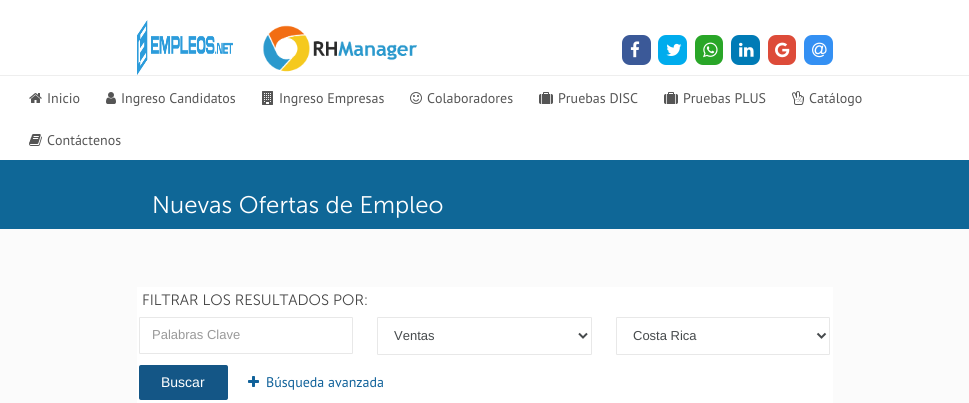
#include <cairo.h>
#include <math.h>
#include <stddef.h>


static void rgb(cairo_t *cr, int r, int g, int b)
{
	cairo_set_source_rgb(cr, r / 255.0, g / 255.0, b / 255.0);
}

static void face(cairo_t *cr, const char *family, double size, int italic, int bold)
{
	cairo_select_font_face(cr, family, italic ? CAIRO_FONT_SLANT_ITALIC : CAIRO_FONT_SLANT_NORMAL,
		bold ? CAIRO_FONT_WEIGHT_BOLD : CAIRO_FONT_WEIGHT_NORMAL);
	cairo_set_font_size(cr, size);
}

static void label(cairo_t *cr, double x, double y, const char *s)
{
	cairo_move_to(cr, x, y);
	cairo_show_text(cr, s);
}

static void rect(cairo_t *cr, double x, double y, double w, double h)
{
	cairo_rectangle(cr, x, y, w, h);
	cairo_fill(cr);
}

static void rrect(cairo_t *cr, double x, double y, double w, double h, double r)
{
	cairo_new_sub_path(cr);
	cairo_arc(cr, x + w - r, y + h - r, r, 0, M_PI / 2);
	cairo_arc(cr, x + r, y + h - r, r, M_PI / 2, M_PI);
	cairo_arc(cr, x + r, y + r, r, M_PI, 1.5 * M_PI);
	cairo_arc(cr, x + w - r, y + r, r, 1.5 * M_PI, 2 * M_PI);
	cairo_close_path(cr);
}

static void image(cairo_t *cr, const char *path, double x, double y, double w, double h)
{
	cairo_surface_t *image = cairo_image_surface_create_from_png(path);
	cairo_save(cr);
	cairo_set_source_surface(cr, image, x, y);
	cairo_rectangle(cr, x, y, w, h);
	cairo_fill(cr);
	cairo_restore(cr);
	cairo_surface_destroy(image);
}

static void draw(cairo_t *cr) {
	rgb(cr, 255, 255, 255);
	cairo_paint(cr);
	rgb(cr, 238, 238, 238);
	rect(cr, 0, 75, 969, 1);
	image(cr, "image0.png", 137, 20, 96, 55);
	image(cr, "image1.png", 263, 25, 154, 47);
	rgb(cr, 59, 89, 152);
	rrect(cr, 622, 35, 29, 30, 8);
	cairo_fill(cr);
	image(cr, "image2.png", 630, 41, 10, 17);
	rgb(cr, 0, 172, 237);
	rrect(cr, 658, 35, 29, 30, 8);
	cairo_fill(cr);
	image(cr, "image3.png", 666, 43, 16, 13);
	rgb(cr, 41, 166, 40);
	rrect(cr, 695, 35, 28, 30, 8);
	cairo_fill(cr);
	image(cr, "image4.png", 703, 42, 15, 16);
	rgb(cr, 0, 123, 182);
	rrect(cr, 731, 35, 29, 30, 8);
	cairo_fill(cr);
	image(cr, "image5.png", 739, 42, 15, 15);
	rgb(cr, 221, 75, 57);
	rrect(cr, 768, 35, 28, 30, 8);
	cairo_fill(cr);
	image(cr, "image6.png", 775, 42, 15, 16);
	rgb(cr, 52, 144, 243);
	rrect(cr, 804, 35, 29, 30, 8);
	cairo_fill(cr);
	image(cr, "image7.png", 812, 42, 15, 16);
	image(cr, "image8.png", 29, 93, 13, 10);
	face(cr, "PT Sans", 14, 0, 0);
	rgb(cr, 85, 85, 85);
	label(cr, 47, 103, "Inicio");
	image(cr, "image9.png", 106, 92, 10, 12);
	label(cr, 121, 103, "Ingreso Candidatos");
	image(cr, "image10.png", 262, 91, 11, 14);
	label(cr, 279, 103, "Ingreso Empresas");
	image(cr, "image11.png", 410, 92, 12, 12);
	label(cr, 427, 103, "Colaboradores");
	image(cr, "image12.png", 539, 92, 14, 12);
	label(cr, 558, 103, "Pruebas DISC");
	image(cr, "image12.png", 664, 92, 14, 12);
	label(cr, 683, 103, "Pruebas PLUS");
	image(cr, "image13.png", 792, 91, 12, 14);
	label(cr, 809, 103, "Catálogo");
	image(cr, "image14.png", 29, 134, 13, 12);
	label(cr, 47, 145, "Contáctenos");
	rgb(cr, 251, 251, 251);
	rect(cr, 0, 229, 969, 174);
	rgb(cr, 15, 103, 151);
	rect(cr, 0, 160, 969, 69);
	face(cr, "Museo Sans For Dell", 24, 0, 0);
	rgb(cr, 255, 255, 255);
	label(cr, 152, 213, "Nuevas Ofertas de Empleo");
	rect(cr, 137, 287, 696, 116);
	face(cr, "Museo Sans For Dell", 15, 0, 0);
	rgb(cr, 68, 68, 68);
	label(cr, 142, 305, "FILTRAR LOS RESULTADOS POR:");
	rrect(cr, 139.5, 317.5, 213, 36, 0.5);
	rgb(cr, 232, 232, 232);
	cairo_set_line_width(cr, 1);
	cairo_stroke(cr);
	face(cr, "Liberation Sans", 13, 0, 0);
	rgb(cr, 153, 153, 153);
	label(cr, 152, 339, "Palabras Clave");
	rrect(cr, 377.5, 317.5, 214, 37, 0.5);
	rgb(cr, 232, 232, 232);
	cairo_stroke(cr);
	cairo_new_path(cr);
	cairo_move_to(cr, 579, 333.5);
	cairo_line_to(cr, 583, 337.5);
	cairo_line_to(cr, 587, 333.5);
	rgb(cr, 70, 74, 76);
	cairo_set_line_width(cr, 2);
	cairo_stroke(cr);
	label(cr, 394, 340, "Ventas");
	rrect(cr, 616.5, 317.5, 213, 37, 0.5);
	rgb(cr, 232, 232, 232);
	cairo_set_line_width(cr, 1);
	cairo_stroke(cr);
	cairo_new_path(cr);
	cairo_move_to(cr, 817.5, 333.5);
	cairo_line_to(cr, 821.5, 337.5);
	cairo_line_to(cr, 825.5, 333.5);
	rgb(cr, 70, 74, 76);
	cairo_set_line_width(cr, 2);
	cairo_stroke(cr);
	label(cr, 633, 340, "Costa Rica");
	rgb(cr, 20, 86, 134);
	rrect(cr, 139, 365, 89, 35, 2);
	cairo_fill(cr);
	face(cr, "Liberation Sans", 14, 0, 0);
	rgb(cr, 255, 255, 255);
	label(cr, 161, 387, "Buscar");
	image(cr, "image15.png", 248, 376, 11, 11);
	face(cr, "PT Sans", 14, 0, 0);
	rgb(cr, 17, 98, 154);
	label(cr, 266, 387, "Búsqueda avanzada");
}

int main(void) {
	cairo_surface_t *surface = cairo_image_surface_create(CAIRO_FORMAT_RGB24, 969, 403);
	cairo_t *cr = cairo_create(surface);
	cairo_font_options_t *options = cairo_font_options_create();
	cairo_font_options_set_hint_metrics(options, CAIRO_HINT_METRICS_OFF);
	cairo_font_options_set_hint_style(options, CAIRO_HINT_STYLE_NONE);
	cairo_set_font_options(cr, options);
	cairo_set_miter_limit(cr, 4);
	draw(cr);
	cairo_surface_write_to_png(surface, "render.png");
	cairo_font_options_destroy(options);
	cairo_destroy(cr);
	cairo_surface_destroy(surface);
	return 0;
}
